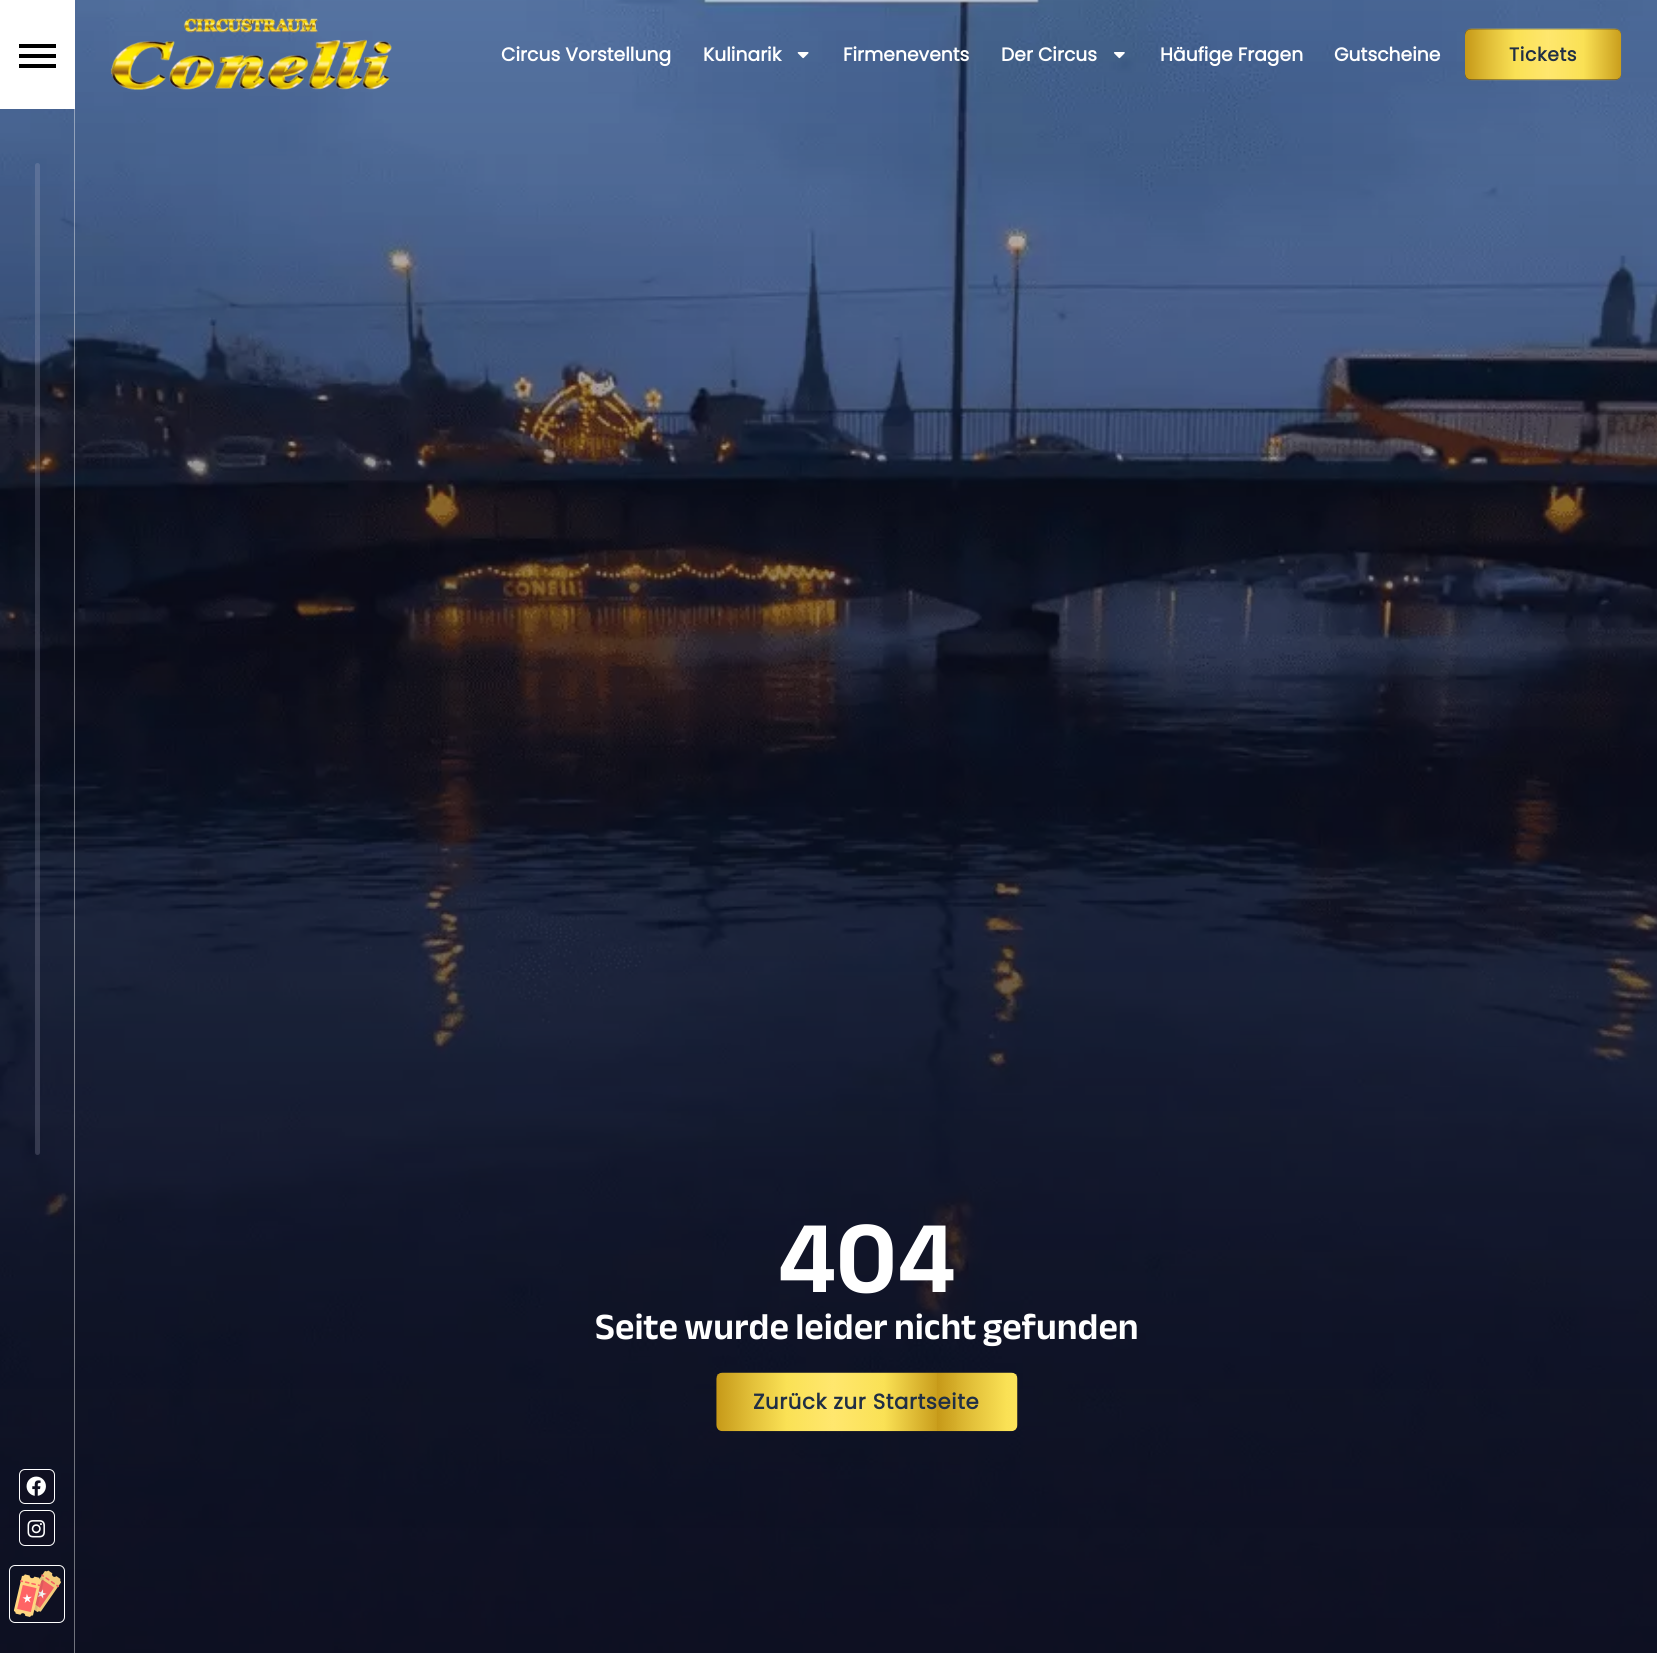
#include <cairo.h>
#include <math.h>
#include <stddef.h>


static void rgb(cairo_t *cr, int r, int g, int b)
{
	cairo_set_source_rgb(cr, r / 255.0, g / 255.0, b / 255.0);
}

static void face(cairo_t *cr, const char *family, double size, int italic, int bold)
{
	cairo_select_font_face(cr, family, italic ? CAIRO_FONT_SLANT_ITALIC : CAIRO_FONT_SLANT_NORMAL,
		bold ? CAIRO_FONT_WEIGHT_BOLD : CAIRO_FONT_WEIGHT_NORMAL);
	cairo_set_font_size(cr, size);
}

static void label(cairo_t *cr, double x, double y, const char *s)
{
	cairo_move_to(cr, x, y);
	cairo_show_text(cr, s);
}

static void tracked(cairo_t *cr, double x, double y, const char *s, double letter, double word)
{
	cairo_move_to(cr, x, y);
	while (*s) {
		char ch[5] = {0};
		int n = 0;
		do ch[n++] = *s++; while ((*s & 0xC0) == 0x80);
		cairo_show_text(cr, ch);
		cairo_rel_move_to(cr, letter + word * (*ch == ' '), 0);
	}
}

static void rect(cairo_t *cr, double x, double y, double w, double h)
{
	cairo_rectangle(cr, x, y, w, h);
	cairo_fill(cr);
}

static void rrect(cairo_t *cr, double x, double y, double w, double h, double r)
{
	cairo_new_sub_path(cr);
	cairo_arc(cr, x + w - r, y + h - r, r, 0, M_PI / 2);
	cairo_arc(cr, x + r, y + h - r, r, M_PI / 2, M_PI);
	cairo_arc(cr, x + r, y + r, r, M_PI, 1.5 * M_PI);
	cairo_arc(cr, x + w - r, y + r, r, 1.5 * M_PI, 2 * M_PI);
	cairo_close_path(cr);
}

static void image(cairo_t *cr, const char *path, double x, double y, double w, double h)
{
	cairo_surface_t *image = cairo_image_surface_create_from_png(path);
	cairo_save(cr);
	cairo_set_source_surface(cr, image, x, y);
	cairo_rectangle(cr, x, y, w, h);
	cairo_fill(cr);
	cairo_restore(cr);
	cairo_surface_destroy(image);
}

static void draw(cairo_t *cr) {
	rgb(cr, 255, 255, 255);
	cairo_paint(cr);
	image(cr, "image7.png", 0, 0, 1657, 1653);
	rgb(cr, 255, 255, 255);
	rect(cr, 0, 0, 75, 109);
	rgb(cr, 0, 0, 0);
	rect(cr, 19, 44, 37, 4);
	rect(cr, 19, 54, 37, 4);
	rect(cr, 19, 64, 37, 4);
	image(cr, "image0.png", 110, 18, 282, 72);
	face(cr, "Poppins", 18.75, 0, 1);
	rgb(cr, 255, 255, 255);
	label(cr, 501, 61, "Circus Vorstellung");
	label(cr, 703, 61, "Kulinarik");
	image(cr, "image1.png", 797, 52, 12, 7);
	label(cr, 843, 61, "Firmenevents");
	label(cr, 1001, 61, "Der Circus");
	image(cr, "image2.png", 1114, 52, 11, 7);
	label(cr, 1160, 61, "Häufige Fragen");
	label(cr, 1334, 61, "Gutscheine");
	rgb(cr, 15, 15, 33);
	rrect(cr, 1465, 29, 156, 51, 6);
	cairo_fill(cr);
	image(cr, "image3.png", 1465, 28, 157, 53);
	rgb(cr, 32, 47, 69);
	tracked(cr, 1509, 61, "Tickets", 0.6, 0);
	cairo_set_source_rgba(cr, 0.969, 0.969, 0.969, 0.43);
	rect(cr, 74, 109, 1, 1544);
	cairo_set_source_rgba(cr, 0.753, 0.753, 0.827, 0.2);
	rrect(cr, 35, 163, 5, 992, 2.5);
	cairo_fill(cr);
	rgb(cr, 15, 15, 33);
	rrect(cr, 19.5, 1469.5, 35, 34, 5.5);
	cairo_fill_preserve(cr);
	rgb(cr, 255, 255, 255);
	cairo_set_line_width(cr, 1);
	cairo_stroke(cr);
	image(cr, "image4.png", 26, 1476, 20, 20);
	rgb(cr, 15, 15, 33);
	rrect(cr, 19.5, 1510.5, 35, 35, 5.5);
	cairo_fill_preserve(cr);
	rgb(cr, 255, 255, 255);
	cairo_stroke(cr);
	image(cr, "image5.png", 27, 1520, 18, 18);
	rrect(cr, 9.5, 1565.5, 55, 57, 5.5);
	cairo_stroke(cr);
	image(cr, "image6.png", 14, 1570, 47, 47);
	face(cr, "Anek Bangla SemiBold", 104, 0, 0);
	label(cr, 778, 1292, "404");
	face(cr, "Anek Bangla SemiBold", 37.5, 0, 0);
	label(cr, 595, 1339, "Seite wurde leider nicht gefunden");
	rgb(cr, 15, 15, 33);
	rrect(cr, 716, 1373, 302, 58, 6);
	cairo_fill(cr);
	image(cr, "image8.png", 716, 1372, 302, 60);
	face(cr, "Poppins", 21.25, 0, 1);
	rgb(cr, 32, 47, 69);
	tracked(cr, 753, 1409, "Zurück zur Startseite", 0.6, 0);
}

int main(void) {
	cairo_surface_t *surface = cairo_image_surface_create(CAIRO_FORMAT_RGB24, 1657, 1653);
	cairo_t *cr = cairo_create(surface);
	cairo_font_options_t *options = cairo_font_options_create();
	cairo_font_options_set_hint_metrics(options, CAIRO_HINT_METRICS_OFF);
	cairo_font_options_set_hint_style(options, CAIRO_HINT_STYLE_NONE);
	cairo_set_font_options(cr, options);
	cairo_set_miter_limit(cr, 4);
	draw(cr);
	cairo_surface_write_to_png(surface, "render.png");
	cairo_font_options_destroy(options);
	cairo_destroy(cr);
	cairo_surface_destroy(surface);
	return 0;
}
